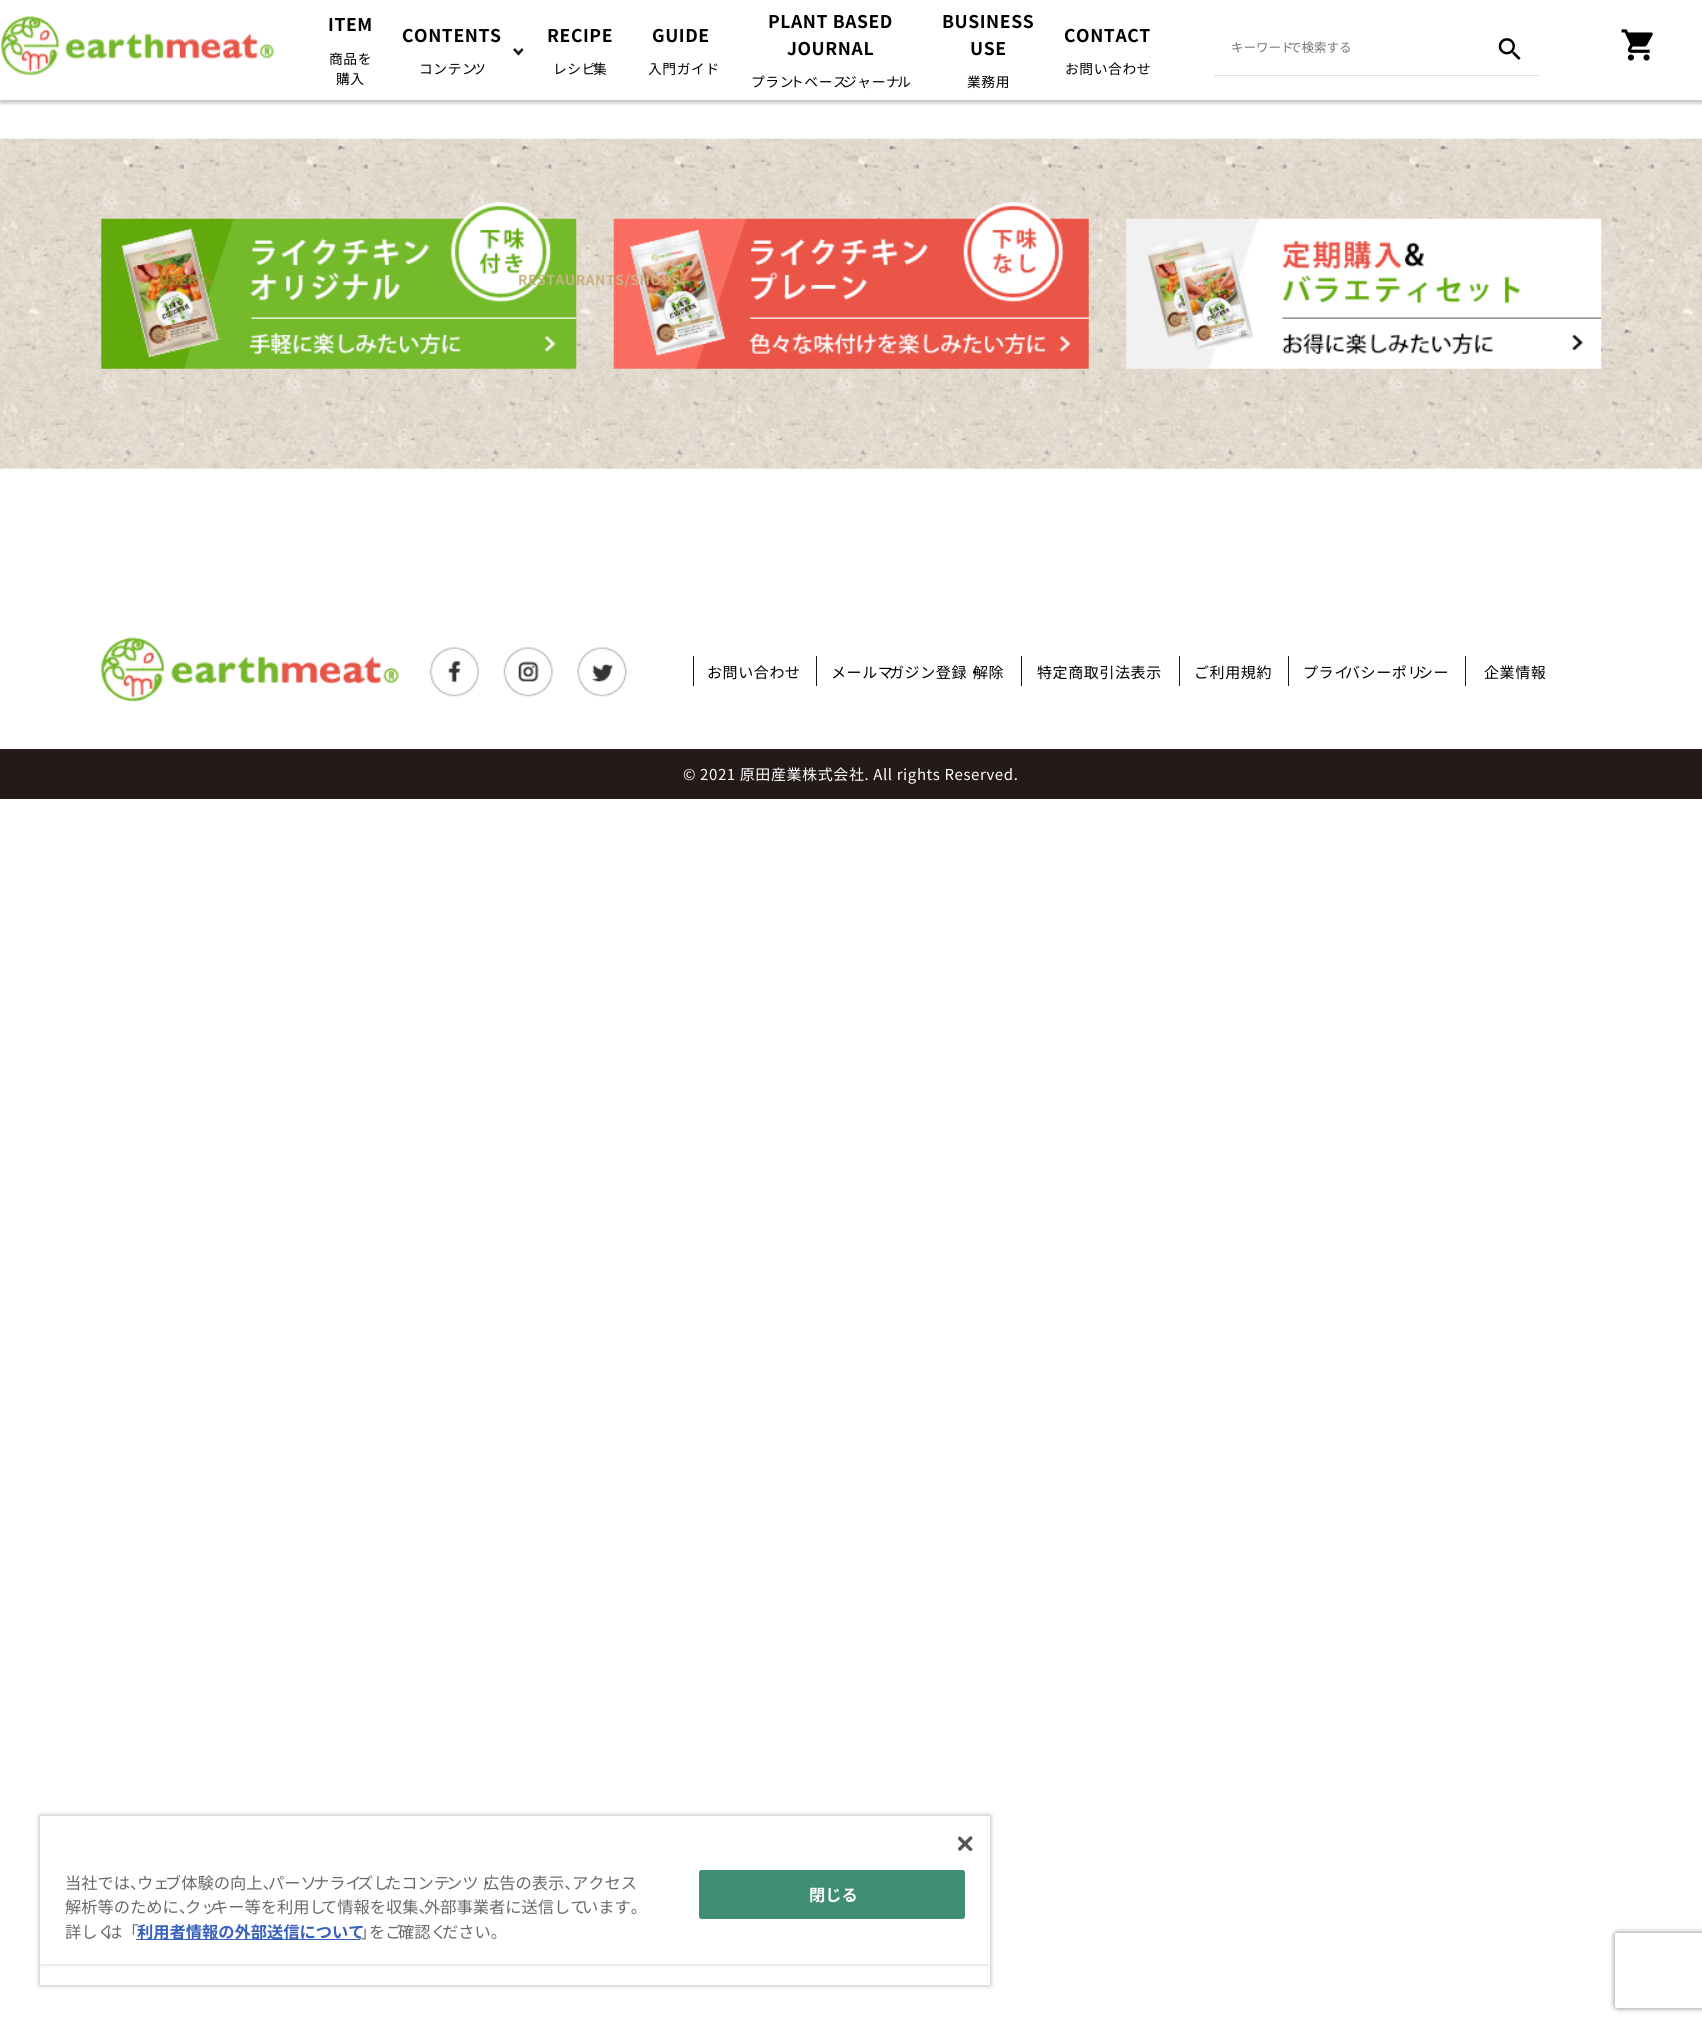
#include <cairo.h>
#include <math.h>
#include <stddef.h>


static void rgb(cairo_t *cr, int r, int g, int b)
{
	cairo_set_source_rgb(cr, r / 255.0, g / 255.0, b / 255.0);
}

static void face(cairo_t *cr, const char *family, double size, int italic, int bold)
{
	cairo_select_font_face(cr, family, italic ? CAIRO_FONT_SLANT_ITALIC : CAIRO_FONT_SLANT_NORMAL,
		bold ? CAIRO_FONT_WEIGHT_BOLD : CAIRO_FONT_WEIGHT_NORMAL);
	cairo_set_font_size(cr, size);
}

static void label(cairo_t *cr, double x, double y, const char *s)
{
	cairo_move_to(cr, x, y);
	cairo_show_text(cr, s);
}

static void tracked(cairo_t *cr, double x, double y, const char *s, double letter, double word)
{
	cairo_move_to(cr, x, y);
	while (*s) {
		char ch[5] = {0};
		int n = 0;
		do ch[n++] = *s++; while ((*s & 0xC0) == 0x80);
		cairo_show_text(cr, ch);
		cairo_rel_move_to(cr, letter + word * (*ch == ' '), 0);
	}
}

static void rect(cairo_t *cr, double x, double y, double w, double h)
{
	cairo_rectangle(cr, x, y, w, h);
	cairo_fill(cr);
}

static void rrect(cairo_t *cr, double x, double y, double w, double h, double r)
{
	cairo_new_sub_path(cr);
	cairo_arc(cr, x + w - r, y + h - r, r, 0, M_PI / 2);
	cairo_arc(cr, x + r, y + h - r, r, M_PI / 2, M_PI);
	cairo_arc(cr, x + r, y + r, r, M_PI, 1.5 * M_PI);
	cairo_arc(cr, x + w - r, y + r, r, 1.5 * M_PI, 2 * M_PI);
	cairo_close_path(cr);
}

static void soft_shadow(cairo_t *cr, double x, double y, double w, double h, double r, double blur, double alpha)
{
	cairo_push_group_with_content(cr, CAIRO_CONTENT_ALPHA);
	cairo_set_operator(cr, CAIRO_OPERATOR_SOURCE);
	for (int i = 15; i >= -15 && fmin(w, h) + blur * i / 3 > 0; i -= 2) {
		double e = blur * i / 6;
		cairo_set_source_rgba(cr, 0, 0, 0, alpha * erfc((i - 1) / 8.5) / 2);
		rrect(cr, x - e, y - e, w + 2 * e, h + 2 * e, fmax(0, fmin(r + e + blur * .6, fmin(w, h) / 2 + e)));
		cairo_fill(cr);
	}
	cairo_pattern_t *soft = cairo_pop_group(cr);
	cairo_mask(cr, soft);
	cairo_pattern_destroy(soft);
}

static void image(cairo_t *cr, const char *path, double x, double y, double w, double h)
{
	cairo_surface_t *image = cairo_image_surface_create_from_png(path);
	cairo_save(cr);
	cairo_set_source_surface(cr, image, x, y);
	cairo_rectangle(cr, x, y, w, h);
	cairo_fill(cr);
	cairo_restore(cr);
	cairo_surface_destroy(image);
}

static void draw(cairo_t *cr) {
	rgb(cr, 255, 255, 255);
	cairo_paint(cr);
	cairo_save(cr);
	cairo_rectangle(cr, 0, 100, 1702, 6);
	cairo_clip(cr);
	rgb(cr, 0, 0, 0);
	soft_shadow(cr, 0, 3, 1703, 100, 0, 2, 0.25);
	cairo_restore(cr);
	image(cr, "image0.png", 1, 16, 273, 59);
	face(cr, "Noto Sans JP", 17.5, 0, 1);
	rgb(cr, 0, 0, 0);
	tracked(cr, 328, 31, "ITEM", 0.6, 0);
	face(cr, "Noto Sans JP", 13.75, 0, 0);
	tracked(cr, 329, 64, "商品を", 0.6, 0);
	tracked(cr, 336, 84, "購入", 0.6, 0);
	face(cr, "Noto Sans JP", 17.5, 0, 1);
	tracked(cr, 768, 28, "PLANT BASED", 0.6, 0);
	tracked(cr, 787, 55, "JOURNAL", 0.6, 0);
	face(cr, "Noto Sans JP", 13.75, 0, 0);
	tracked(cr, 751, 87, "プラン", 0.6, 0);
	tracked(cr, 790, 87, "トベース", 0.6, 0);
	tracked(cr, 843, 87, "ジャーナ", 0.6, 0);
	tracked(cr, 897, 87, "ル", 0.6, 0);
	face(cr, "Noto Sans JP", 17.5, 0, 1);
	tracked(cr, 942, 28, "BUSINESS", 0.6, 0);
	tracked(cr, 970, 55, "USE", 0.6, 0);
	face(cr, "Noto Sans JP", 13.75, 0, 0);
	tracked(cr, 967, 87, "業務用", 0.6, 0);
	face(cr, "Noto Sans JP", 17.5, 0, 1);
	tracked(cr, 402, 42, "CONTENTS", 0.6, 0);
	face(cr, "Noto Sans JP", 13.75, 0, 0);
	tracked(cr, 419, 74, "コンテン", 0.6, 0);
	tracked(cr, 472, 74, "ツ", 0.6, 0);
	rgb(cr, 27, 27, 27);
	cairo_new_path(cr);
	cairo_move_to(cr, 523.5, 50);
	cairo_line_to(cr, 518.5, 55.5);
	cairo_line_to(cr, 516.5, 53.5);
	cairo_line_to(cr, 522, 48);
	cairo_close_path(cr);
	cairo_fill(cr);
	cairo_new_path(cr);
	cairo_move_to(cr, 520, 53.5);
	cairo_line_to(cr, 518.5, 55.5);
	cairo_line_to(cr, 513, 50);
	cairo_line_to(cr, 515, 48);
	cairo_close_path(cr);
	cairo_fill(cr);
	image(cr, "image3.png", 0, 138, 1702, 331);
	image(cr, "image4.png", 101, 201, 476, 168);
	face(cr, "Noto Sans JP", 13.75, 0, 1);
	rgb(cr, 149, 147, 47);
	tracked(cr, 159, 285, "USER’S", 0.6, 0);
	image(cr, "image5.png", 613, 201, 476, 168);
	rgb(cr, 199, 178, 131);
	tracked(cr, 518, 285, "RESTAURANTS/SHOPS", 0.6, 0);
	face(cr, "Noto Sans JP", 17.5, 0, 1);
	rgb(cr, 0, 0, 0);
	tracked(cr, 547, 42, "RECIPE", 0.6, 0);
	face(cr, "Noto Sans JP", 13.75, 0, 0);
	tracked(cr, 553, 74, "レシピ", 0.6, 0);
	tracked(cr, 593, 74, "集", 0.6, 0);
	face(cr, "Noto Sans JP", 17.5, 0, 1);
	tracked(cr, 652, 42, "GUIDE", 0.6, 0);
	face(cr, "Noto Sans JP", 13.75, 0, 0);
	tracked(cr, 648, 74, "入門ガイド", 0.6, 0);
	face(cr, "Noto Sans JP", 17.5, 0, 1);
	tracked(cr, 1064, 42, "CONTACT", 0.6, 0);
	face(cr, "Noto Sans JP", 13.75, 0, 0);
	tracked(cr, 1065, 74, "お問い合わせ", 0.6, 0);
	rgb(cr, 223, 223, 223);
	rect(cr, 1214, 75, 325, 1);
	face(cr, "Noto Sans JP", 12.5, 0, 0);
	rgb(cr, 117, 117, 117);
	label(cr, 1231, 52, "キーワード");
	label(cr, 1289, 52, "で検索する");
	image(cr, "image1.png", 1498, 38, 23, 22);
	image(cr, "image2.png", 1621, 29, 32, 32);
	image(cr, "image6.png", 1126, 218, 476, 151);
	image(cr, "image7.png", 101, 637, 298, 65);
	image(cr, "image8.png", 430, 647, 49, 50);
	image(cr, "image9.png", 503, 647, 50, 50);
	image(cr, "image10.png", 577, 647, 50, 50);
	rgb(cr, 27, 27, 27);
	rect(cr, 816, 656, 1, 30);
	rect(cr, 693, 656, 1, 30);
	face(cr, "Noto Sans JP", 15, 0, 0);
	rgb(cr, 0, 0, 0);
	tracked(cr, 707, 678, "お問い合わせ", 0.6, 0);
	rgb(cr, 27, 27, 27);
	rect(cr, 1021, 656, 1, 30);
	rgb(cr, 0, 0, 0);
	tracked(cr, 831, 678, "メールマ", 0.6, 0);
	tracked(cr, 889, 678, "ガジン登録・", 0.6, 0);
	tracked(cr, 973, 678, "解除", 0.6, 0);
	rgb(cr, 27, 27, 27);
	rect(cr, 1179, 656, 1, 30);
	rgb(cr, 0, 0, 0);
	tracked(cr, 1037, 678, "特定商取引法表示", 0.6, 0);
	rgb(cr, 27, 27, 27);
	rect(cr, 1288, 656, 1, 30);
	rgb(cr, 0, 0, 0);
	tracked(cr, 1194, 678, "ご利用規約", 0.6, 0);
	rgb(cr, 27, 27, 27);
	rect(cr, 1465, 656, 1, 30);
	rgb(cr, 0, 0, 0);
	tracked(cr, 1303, 678, "プライ", 0.6, 0);
	tracked(cr, 1345, 678, "バシーポリ", 0.6, 0);
	tracked(cr, 1418, 678, "シー", 0.6, 0);
	tracked(cr, 1484, 678, "企業情報", 0.6, 0);
	rgb(cr, 35, 26, 25);
	rect(cr, 0, 749, 1702, 50);
	rgb(cr, 255, 255, 255);
	tracked(cr, 683, 780, "© 2021 原田産業株式会社. All rights Reserved.", 0.6, 0);
	cairo_save(cr);
	cairo_set_fill_rule(cr, CAIRO_FILL_RULE_EVEN_ODD);
	cairo_new_path(cr);
	cairo_move_to(cr, 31, 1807);
	cairo_line_to(cr, 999, 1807);
	cairo_line_to(cr, 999, 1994);
	cairo_line_to(cr, 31, 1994);
	cairo_close_path(cr);
	cairo_move_to(cr, 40, 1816);
	cairo_line_to(cr, 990, 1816);
	cairo_line_to(cr, 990, 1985);
	cairo_line_to(cr, 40, 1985);
	cairo_close_path(cr);
	cairo_clip(cr);
	rgb(cr, 0, 0, 0);
	soft_shadow(cr, 40, 1816, 950, 169, 0, 2.5, 0.35);
	cairo_restore(cr);
	cairo_save(cr);
	cairo_rectangle(cr, 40, 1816, 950, 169);
	cairo_clip(cr);
	rgb(cr, 0, 0, 0);
	soft_shadow(cr, 40, 1816, 950, 148, 0, 2.5, 0.2);
	cairo_restore(cr);
	rect(cr, 40, 1816, 950, 148);
	image(cr, "image11.png", 958, 1836, 15, 15);
	face(cr, "Noto Sans JP", 16.25, 0, 0);
	rgb(cr, 105, 105, 105);
	label(cr, 65, 1889, "当社では、");
	label(cr, 137, 1889, "ウェ");
	label(cr, 165, 1889, "ブ体験の向上、");
	label(cr, 268, 1889, "パーソ");
	label(cr, 313, 1889, "ナライ");
	label(cr, 357, 1889, "ズし");
	label(cr, 385, 1889, "たコンテ");
	label(cr, 446, 1889, "ンツ・");
	label(cr, 483, 1889, "広告の表示、");
	label(cr, 572, 1889, "アクセス");
	label(cr, 65, 1913, "解析等のために、");
	label(cr, 185, 1913, "クッ");
	label(cr, 212, 1913, "キー等を利用し");
	label(cr, 321, 1913, "て情報を収集、");
	label(cr, 424, 1913, "外部事業者に送信して");
	label(cr, 582, 1913, "います。");
	label(cr, 65, 1938, "詳しく");
	label(cr, 106, 1938, "は「");
	rgb(cr, 56, 96, 190);
	rect(cr, 136, 1939, 224, 1);
	face(cr, "Noto Sans JP", 16.25, 0, 1);
	label(cr, 137, 1938, "利用者情報の外部送信について");
	face(cr, "Noto Sans JP", 16.25, 0, 0);
	rgb(cr, 105, 105, 105);
	label(cr, 360, 1938, "」");
	label(cr, 369, 1938, "をご");
	label(cr, 398, 1938, "確認く");
	label(cr, 442, 1938, "ださい。");
	rgb(cr, 64, 141, 118);
	rrect(cr, 699.5, 1870.5, 265, 48, 2);
	cairo_fill_preserve(cr);
	cairo_set_line_width(cr, 1);
	cairo_stroke(cr);
	face(cr, "Noto Sans JP", 16.25, 0, 1);
	rgb(cr, 255, 255, 255);
	label(cr, 809, 1901, "閉じる");
	cairo_save(cr);
	cairo_set_fill_rule(cr, CAIRO_FILL_RULE_EVEN_ODD);
	cairo_new_path(cr);
	cairo_move_to(cr, 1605, 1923);
	cairo_line_to(cr, 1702, 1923);
	cairo_line_to(cr, 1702, 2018);
	cairo_line_to(cr, 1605, 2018);
	cairo_close_path(cr);
	cairo_move_to(cr, 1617.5, 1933);
	cairo_line_to(cr, 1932.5, 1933);
	cairo_curve_to(cr, 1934, 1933, 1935, 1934, 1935, 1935.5);
	cairo_line_to(cr, 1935, 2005.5);
	cairo_curve_to(cr, 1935, 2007, 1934, 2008, 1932.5, 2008);
	cairo_line_to(cr, 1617.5, 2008);
	cairo_curve_to(cr, 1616, 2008, 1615, 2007, 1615, 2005.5);
	cairo_line_to(cr, 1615, 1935.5);
	cairo_curve_to(cr, 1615, 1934, 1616, 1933, 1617.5, 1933);
	cairo_close_path(cr);
	cairo_clip(cr);
	rgb(cr, 128, 128, 128);
	soft_shadow(cr, 1615, 1933, 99, 75, 2.5, 3, 1);
	cairo_restore(cr);
}

int main(void) {
	cairo_surface_t *surface = cairo_image_surface_create(CAIRO_FORMAT_RGB24, 1702, 2024);
	cairo_t *cr = cairo_create(surface);
	cairo_font_options_t *options = cairo_font_options_create();
	cairo_font_options_set_hint_metrics(options, CAIRO_HINT_METRICS_OFF);
	cairo_font_options_set_hint_style(options, CAIRO_HINT_STYLE_NONE);
	cairo_set_font_options(cr, options);
	cairo_set_miter_limit(cr, 4);
	draw(cr);
	cairo_surface_write_to_png(surface, "render.png");
	cairo_font_options_destroy(options);
	cairo_destroy(cr);
	cairo_surface_destroy(surface);
	return 0;
}
